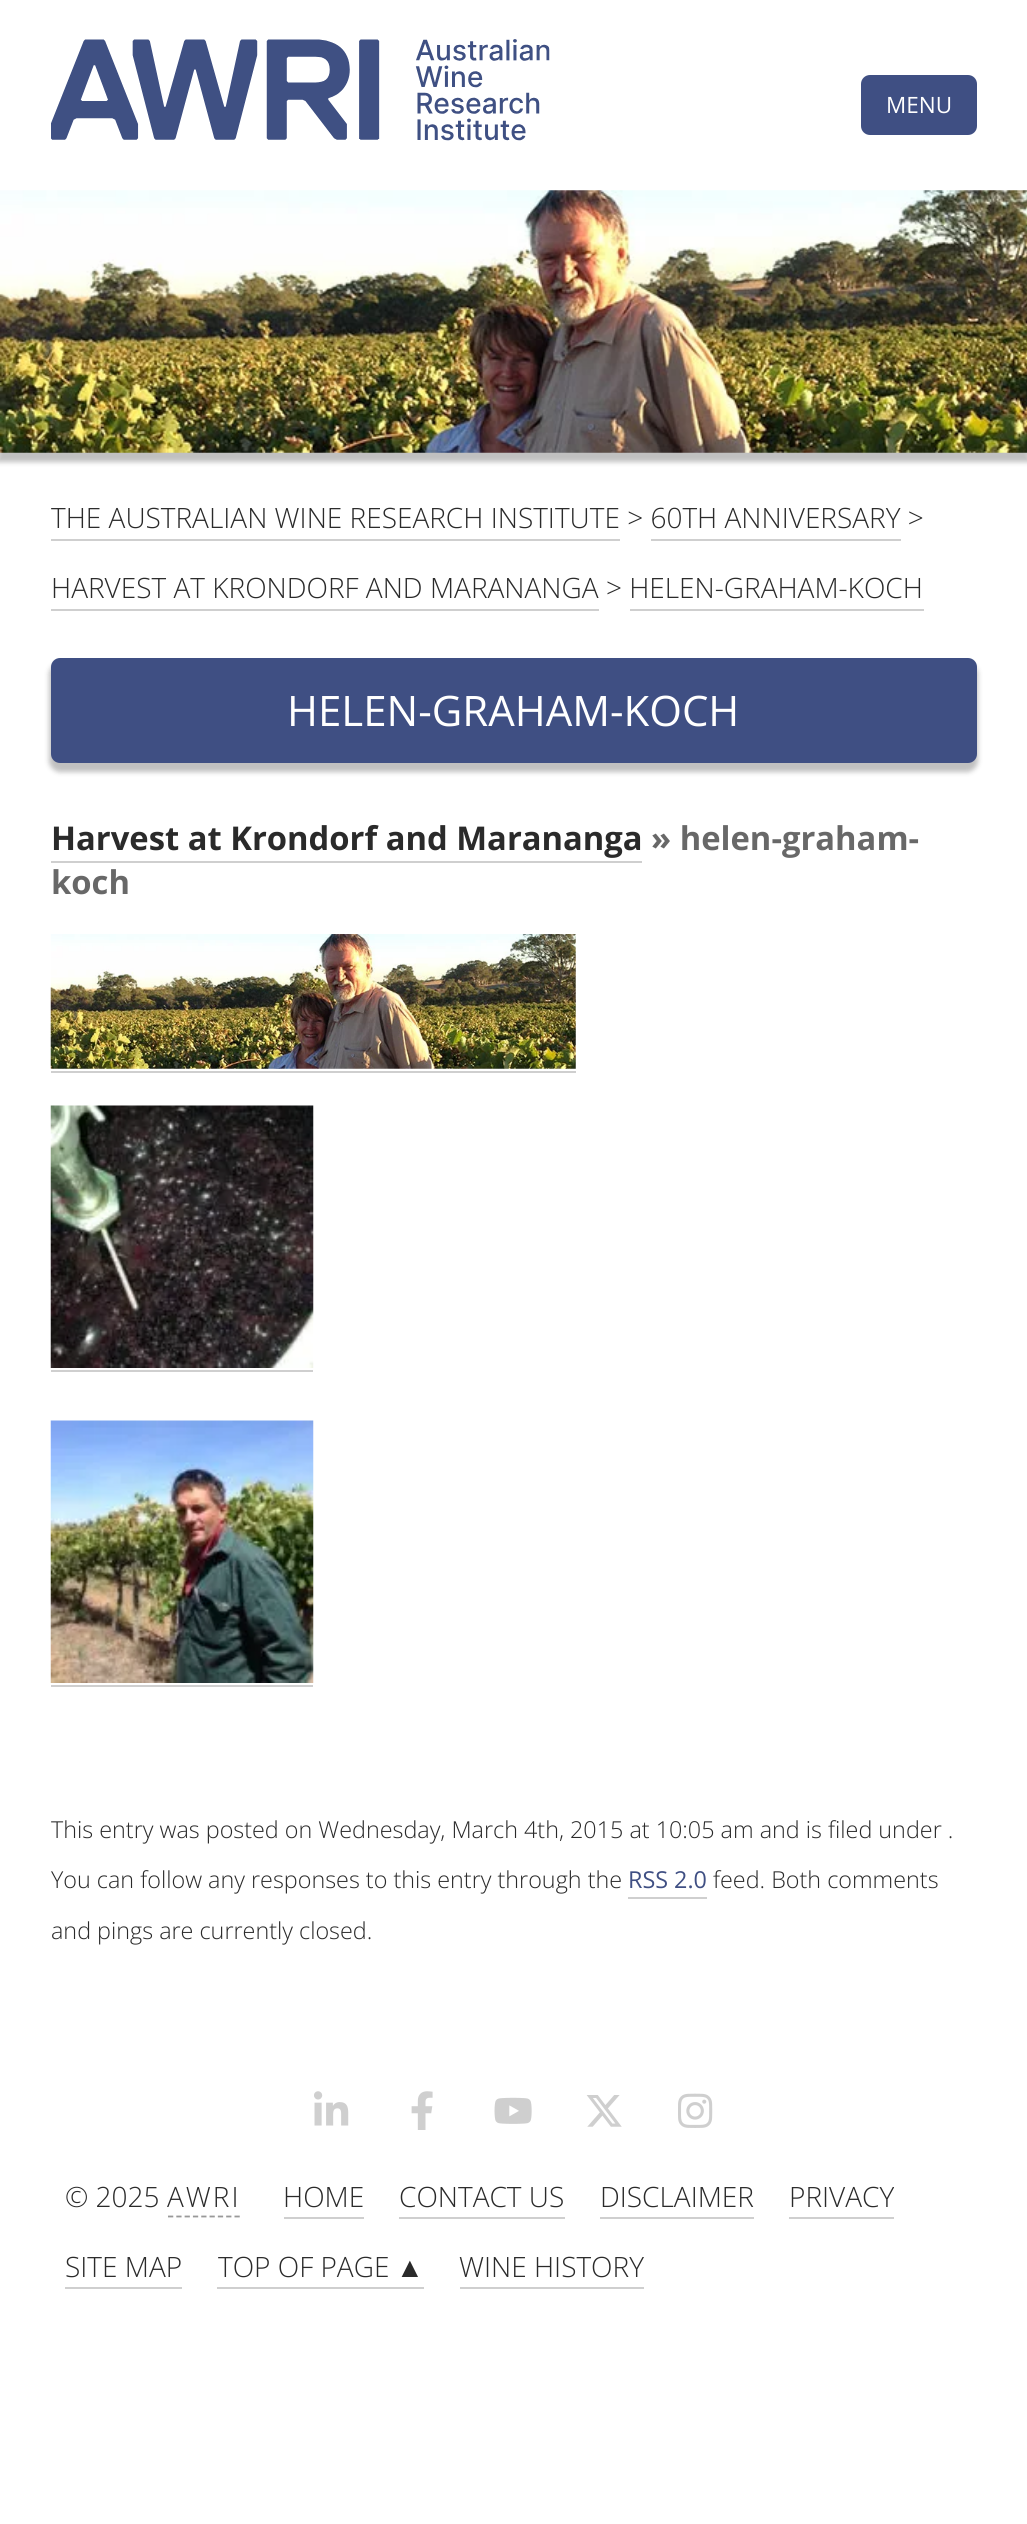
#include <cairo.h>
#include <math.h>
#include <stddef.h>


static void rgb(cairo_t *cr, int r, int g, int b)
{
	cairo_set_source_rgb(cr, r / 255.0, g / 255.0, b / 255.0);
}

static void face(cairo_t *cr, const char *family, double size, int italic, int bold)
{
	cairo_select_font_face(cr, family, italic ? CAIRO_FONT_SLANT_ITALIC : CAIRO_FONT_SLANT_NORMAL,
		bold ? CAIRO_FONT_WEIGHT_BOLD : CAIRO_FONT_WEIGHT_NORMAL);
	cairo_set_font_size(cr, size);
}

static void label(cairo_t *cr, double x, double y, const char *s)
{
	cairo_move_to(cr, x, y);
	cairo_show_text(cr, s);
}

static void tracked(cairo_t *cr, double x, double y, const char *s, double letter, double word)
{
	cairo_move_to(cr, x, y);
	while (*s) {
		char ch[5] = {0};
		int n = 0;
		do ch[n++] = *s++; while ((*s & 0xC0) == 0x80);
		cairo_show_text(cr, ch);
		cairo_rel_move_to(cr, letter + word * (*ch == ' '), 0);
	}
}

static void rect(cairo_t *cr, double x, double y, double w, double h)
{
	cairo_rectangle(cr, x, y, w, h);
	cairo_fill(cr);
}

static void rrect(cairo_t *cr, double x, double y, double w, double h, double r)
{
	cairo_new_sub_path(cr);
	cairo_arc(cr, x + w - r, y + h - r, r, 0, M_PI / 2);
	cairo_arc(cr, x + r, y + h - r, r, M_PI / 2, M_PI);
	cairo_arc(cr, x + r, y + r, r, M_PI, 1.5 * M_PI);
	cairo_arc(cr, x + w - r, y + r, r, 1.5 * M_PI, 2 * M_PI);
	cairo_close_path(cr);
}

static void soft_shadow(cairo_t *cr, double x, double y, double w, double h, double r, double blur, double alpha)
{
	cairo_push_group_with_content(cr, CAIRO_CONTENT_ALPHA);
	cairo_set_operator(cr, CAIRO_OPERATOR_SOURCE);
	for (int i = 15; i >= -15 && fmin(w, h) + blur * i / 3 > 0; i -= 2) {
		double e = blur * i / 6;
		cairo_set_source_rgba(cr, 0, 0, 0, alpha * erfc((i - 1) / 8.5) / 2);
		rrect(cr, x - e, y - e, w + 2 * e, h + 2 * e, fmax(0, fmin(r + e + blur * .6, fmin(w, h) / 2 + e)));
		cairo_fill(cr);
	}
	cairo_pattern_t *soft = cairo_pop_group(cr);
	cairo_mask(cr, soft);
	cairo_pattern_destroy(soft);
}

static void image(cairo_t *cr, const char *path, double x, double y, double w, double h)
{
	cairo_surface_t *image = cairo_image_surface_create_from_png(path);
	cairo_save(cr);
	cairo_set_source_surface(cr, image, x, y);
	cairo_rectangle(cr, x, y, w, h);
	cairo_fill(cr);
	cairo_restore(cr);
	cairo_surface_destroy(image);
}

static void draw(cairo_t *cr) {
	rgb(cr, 255, 255, 255);
	cairo_paint(cr);
	image(cr, "image0.png", 51, 39, 499, 102);
	rgb(cr, 63, 79, 131);
	rrect(cr, 862, 76, 114, 58, 8);
	cairo_fill_preserve(cr);
	cairo_stroke(cr);
	face(cr, "Open Sans", 22.5, 0, 0);
	rgb(cr, 255, 255, 255);
	label(cr, 886, 113, "MENU");
	rgb(cr, 0, 0, 0);
	soft_shadow(cr, -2, 196, 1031, 266, 0, 2.5, 0.25);
	image(cr, "image1.png", 0, 190, 1027, 263);
	face(cr, "Open Sans Light", 28, 0, 0);
	rgb(cr, 42, 42, 42);
	label(cr, 51, 528, "THE AUSTRALIAN WINE RESEARCH INSTITUTE > 60TH ANNIVERSARY >");
	rgb(cr, 207, 207, 207);
	rect(cr, 51, 539, 569, 2);
	rect(cr, 651, 539, 250, 2);
	rgb(cr, 42, 42, 42);
	label(cr, 51, 598, "HARVEST AT KRONDORF AND MARANANGA > HELEN-GRAHAM-KOCH");
	rgb(cr, 207, 207, 207);
	rect(cr, 51, 609, 548, 2);
	rect(cr, 630, 609, 294, 2);
	rgb(cr, 0, 0, 0);
	soft_shadow(cr, 49, 663, 929, 109, 11, 2.5, 0.25);
	rgb(cr, 63, 79, 131);
	rrect(cr, 51, 658, 926, 105, 9);
	cairo_fill(cr);
	face(cr, "Open Sans", 42, 0, 0);
	rgb(cr, 255, 255, 255);
	label(cr, 287, 726, "HELEN-GRAHAM-KOCH");
	face(cr, "Open Sans", 32.75, 0, 1);
	rgb(cr, 42, 42, 42);
	label(cr, 51, 850, "Harvest at Krondorf and Marananga");
	rgb(cr, 207, 207, 207);
	rect(cr, 51, 861, 591, 2);
	rgb(cr, 104, 104, 104);
	label(cr, 651, 850, "» helen-graham-");
	label(cr, 51, 894, "koch");
	image(cr, "image2.png", 50, 934, 526, 135);
	rgb(cr, 207, 207, 207);
	rect(cr, 51, 1071, 525, 2);
	image(cr, "image3.png", 50, 1105, 264, 263);
	rect(cr, 51, 1370, 262, 2);
	image(cr, "image4.png", 50, 1420, 264, 263);
	rect(cr, 51, 1685, 262, 2);
	face(cr, "Open Sans Light", 23.35, 0, 0);
	rgb(cr, 42, 42, 42);
	label(cr, 51, 1838, "This entry was posted on Wednesday, March 4th, 2015 at 10:05 am and is filed under .");
	label(cr, 51, 1888, "You can follow any responses to this entry through the");
	face(cr, "Open Sans", 23.35, 0, 0);
	rgb(cr, 63, 79, 131);
	label(cr, 628, 1888, "RSS 2.0");
	rgb(cr, 207, 207, 207);
	rect(cr, 628, 1897, 79, 2);
	face(cr, "Open Sans Light", 23.35, 0, 0);
	rgb(cr, 42, 42, 42);
	label(cr, 713, 1888, "feed. Both comments");
	label(cr, 51, 1939, "and pings are currently closed.");
	image(cr, "image5.png", 314, 2091, 35, 35);
	image(cr, "image6.png", 411, 2091, 22, 39);
	image(cr, "image7.png", 494, 2097, 38, 27);
	image(cr, "image8.png", 586, 2095, 36, 32);
	image(cr, "image9.png", 678, 2093, 35, 35);
	face(cr, "Open Sans Light", 28, 0, 0);
	label(cr, 65, 2207, "© 2025");
	tracked(cr, 167, 2207, "AWRI", 2, 0);
	cairo_new_path(cr);
	cairo_move_to(cr, 168, 2216.5);
	cairo_line_to(cr, 240, 2216.5);
	rgb(cr, 153, 153, 153);
	cairo_set_line_width(cr, 1.8);
	cairo_set_dash(cr, (double[]){5.25, 3.06}, 2, 0);
	cairo_stroke(cr);
	rgb(cr, 42, 42, 42);
	label(cr, 283, 2207, "HOME");
	rgb(cr, 207, 207, 207);
	rect(cr, 284, 2217, 80, 2);
	rgb(cr, 42, 42, 42);
	label(cr, 399, 2207, "CONTACT US");
	rgb(cr, 207, 207, 207);
	rect(cr, 399, 2217, 166, 2);
	rgb(cr, 42, 42, 42);
	label(cr, 600, 2207, "DISCLAIMER");
	rgb(cr, 207, 207, 207);
	rect(cr, 600, 2217, 154, 2);
	rgb(cr, 42, 42, 42);
	label(cr, 789, 2207, "PRIVACY");
	rgb(cr, 207, 207, 207);
	rect(cr, 789, 2217, 105, 2);
	rgb(cr, 42, 42, 42);
	label(cr, 65, 2277, "SITE MAP");
	rgb(cr, 207, 207, 207);
	rect(cr, 65, 2287, 117, 2);
	rgb(cr, 42, 42, 42);
	label(cr, 218, 2277, "TOP OF PAGE");
	face(cr, "Liberation Sans", 28, 0, 0);
	label(cr, 396, 2277, "▲");
	rgb(cr, 207, 207, 207);
	rect(cr, 217, 2287, 207, 2);
	face(cr, "Open Sans Light", 28, 0, 0);
	rgb(cr, 42, 42, 42);
	label(cr, 459, 2277, "WINE HISTORY");
	rgb(cr, 207, 207, 207);
	rect(cr, 460, 2287, 184, 2);
}

int main(void) {
	cairo_surface_t *surface = cairo_image_surface_create(CAIRO_FORMAT_RGB24, 1027, 2524);
	cairo_t *cr = cairo_create(surface);
	cairo_font_options_t *options = cairo_font_options_create();
	cairo_font_options_set_hint_metrics(options, CAIRO_HINT_METRICS_OFF);
	cairo_font_options_set_hint_style(options, CAIRO_HINT_STYLE_NONE);
	cairo_set_font_options(cr, options);
	cairo_set_miter_limit(cr, 4);
	draw(cr);
	cairo_surface_write_to_png(surface, "render.png");
	cairo_font_options_destroy(options);
	cairo_destroy(cr);
	cairo_surface_destroy(surface);
	return 0;
}
